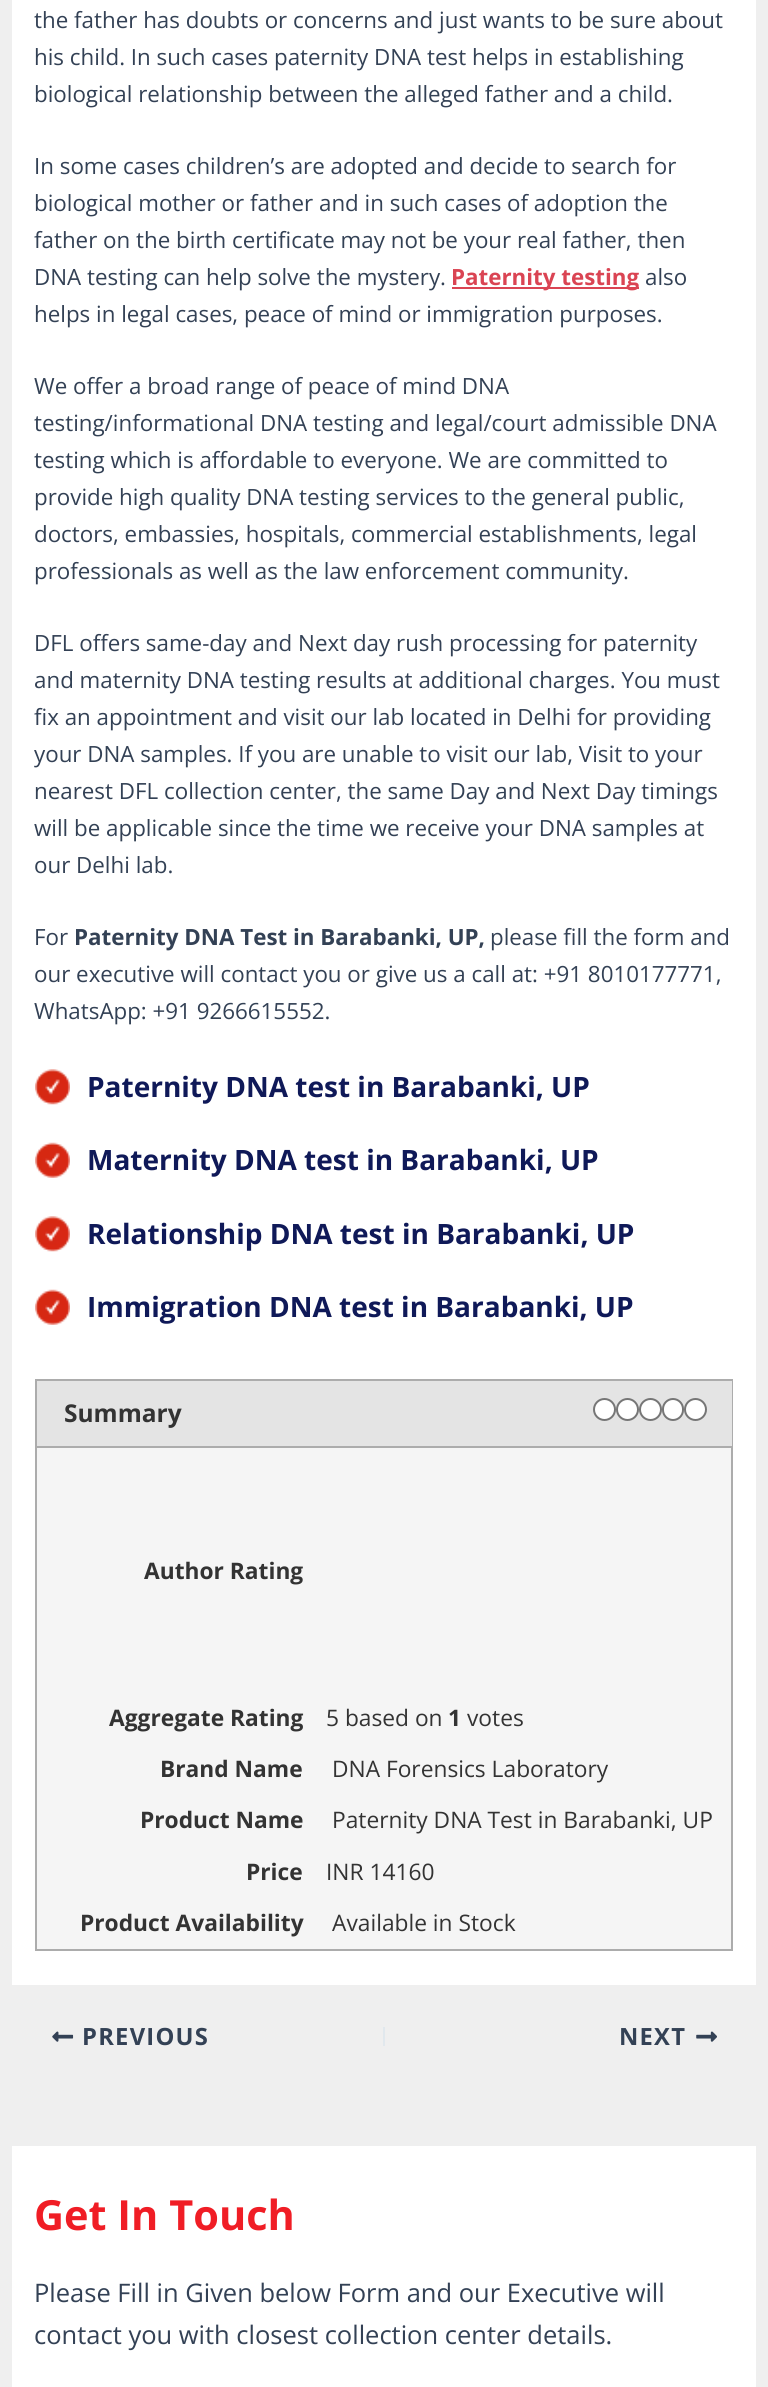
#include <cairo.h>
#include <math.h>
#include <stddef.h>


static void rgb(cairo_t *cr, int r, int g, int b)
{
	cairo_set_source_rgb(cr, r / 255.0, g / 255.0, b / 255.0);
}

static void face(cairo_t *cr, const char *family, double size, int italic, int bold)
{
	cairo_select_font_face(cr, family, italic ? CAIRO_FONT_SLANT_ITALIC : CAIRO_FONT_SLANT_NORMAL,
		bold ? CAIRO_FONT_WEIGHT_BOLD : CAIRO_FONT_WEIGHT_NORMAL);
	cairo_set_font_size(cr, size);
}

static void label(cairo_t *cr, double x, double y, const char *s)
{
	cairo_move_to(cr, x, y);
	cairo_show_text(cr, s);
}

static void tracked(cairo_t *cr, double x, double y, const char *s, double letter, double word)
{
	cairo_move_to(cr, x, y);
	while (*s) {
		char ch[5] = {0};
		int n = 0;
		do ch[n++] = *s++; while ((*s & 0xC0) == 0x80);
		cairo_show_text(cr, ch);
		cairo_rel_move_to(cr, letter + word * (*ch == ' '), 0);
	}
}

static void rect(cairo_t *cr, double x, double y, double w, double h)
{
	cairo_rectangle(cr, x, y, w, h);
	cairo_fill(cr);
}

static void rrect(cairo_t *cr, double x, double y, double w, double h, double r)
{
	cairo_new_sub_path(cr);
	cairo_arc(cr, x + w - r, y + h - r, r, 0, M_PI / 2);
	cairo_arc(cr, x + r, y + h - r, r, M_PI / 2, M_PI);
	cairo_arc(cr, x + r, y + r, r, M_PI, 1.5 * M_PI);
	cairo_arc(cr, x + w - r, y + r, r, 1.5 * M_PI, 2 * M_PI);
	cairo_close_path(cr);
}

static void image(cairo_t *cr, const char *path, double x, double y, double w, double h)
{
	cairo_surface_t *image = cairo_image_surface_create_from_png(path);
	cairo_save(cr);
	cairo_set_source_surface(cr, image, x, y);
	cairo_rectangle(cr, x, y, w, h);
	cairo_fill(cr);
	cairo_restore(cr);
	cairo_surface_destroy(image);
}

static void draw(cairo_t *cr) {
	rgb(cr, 239, 239, 239);
	cairo_paint(cr);
	rgb(cr, 255, 255, 255);
	rect(cr, 12, 0, 744, 1985);
	face(cr, "Open Sans", 22.35, 0, 0);
	rgb(cr, 51, 65, 85);
	label(cr, 34, 28, "the father has doubts or concerns and just wants to be sure about");
	label(cr, 34, 65, "his child. In such cases paternity DNA test helps in establishing");
	label(cr, 34, 102, "biological relationship between the alleged father and a child.");
	label(cr, 34, 174, "In some cases children’s are adopted and decide to search for");
	label(cr, 34, 211, "biological mother or father and in such cases of adoption the");
	label(cr, 34, 248, "father on the birth certificate may not be your real father, then");
	label(cr, 34, 285, "DNA testing can help solve the mystery.");
	rgb(cr, 218, 68, 83);
	rect(cr, 452, 287, 187, 2);
	face(cr, "Open Sans", 22.35, 0, 1);
	label(cr, 451, 285, "Paternity testing");
	face(cr, "Open Sans", 22.35, 0, 0);
	rgb(cr, 51, 65, 85);
	label(cr, 645, 285, "also");
	label(cr, 34, 322, "helps in legal cases, peace of mind or immigration purposes.");
	label(cr, 34, 394, "We offer a broad range of peace of mind DNA");
	label(cr, 34, 431, "testing/informational DNA testing and legal/court admissible DNA");
	label(cr, 34, 468, "testing which is affordable to everyone. We are committed to");
	label(cr, 34, 505, "provide high quality DNA testing services to the general public,");
	label(cr, 34, 542, "doctors, embassies, hospitals, commercial establishments, legal");
	label(cr, 34, 579, "professionals as well as the law enforcement community.");
	label(cr, 34, 651, "DFL offers same-day and Next day rush processing for paternity");
	label(cr, 34, 688, "and maternity DNA testing results at additional charges. You must");
	label(cr, 34, 725, "fix an appointment and visit our lab located in Delhi for providing");
	label(cr, 34, 762, "your DNA samples. If you are unable to visit our lab, Visit to your");
	label(cr, 34, 799, "nearest DFL collection center, the same Day and Next Day timings");
	label(cr, 34, 836, "will be applicable since the time we receive your DNA samples at");
	label(cr, 34, 873, "our Delhi lab.");
	label(cr, 34, 945, "For");
	face(cr, "Open Sans", 22.35, 0, 1);
	label(cr, 74, 945, "Paternity DNA Test in Barabanki, UP,");
	face(cr, "Open Sans", 22.35, 0, 0);
	label(cr, 490, 945, "please fill the form and");
	label(cr, 34, 982, "our executive will contact you or give us a call at: +91 8010177771,");
	label(cr, 34, 1019, "WhatsApp: +91 9266615552.");
	image(cr, "image0.png", 35, 1069, 35, 36);
	face(cr, "Open Sans", 28, 0, 1);
	rgb(cr, 15, 25, 88);
	label(cr, 87, 1097, "Paternity DNA test in Barabanki, UP");
	image(cr, "image1.png", 35, 1142, 35, 36);
	label(cr, 87, 1170, "Maternity DNA test in Barabanki, UP");
	image(cr, "image2.png", 35, 1216, 35, 36);
	label(cr, 87, 1244, "Relationship DNA test in Barabanki, UP");
	image(cr, "image1.png", 35, 1289, 35, 36);
	label(cr, 87, 1317, "Immigration DNA test in Barabanki, UP");
	rgb(cr, 245, 245, 245);
	rect(cr, 37, 1448, 694, 501);
	cairo_rectangle(cr, 36, 1380, 696, 570);
	rgb(cr, 172, 172, 172);
	cairo_stroke(cr);
	rgb(cr, 228, 228, 228);
	rect(cr, 37, 1381, 695, 65);
	rgb(cr, 172, 172, 172);
	rect(cr, 37, 1446, 695, 2);
	face(cr, "Open Sans", 24.5, 0, 1);
	rgb(cr, 51, 51, 51);
	label(cr, 64, 1422, "Summary");
	rgb(cr, 255, 255, 255);
	cairo_new_path(cr);
	cairo_arc(cr, 604.5, 1409.5, 10.5, 0, 2 * M_PI);
	cairo_fill_preserve(cr);
	rgb(cr, 118, 118, 118);
	cairo_stroke(cr);
	rgb(cr, 255, 255, 255);
	cairo_arc(cr, 627.5, 1409.5, 10.5, 0, 2 * M_PI);
	cairo_fill_preserve(cr);
	rgb(cr, 118, 118, 118);
	cairo_stroke(cr);
	rgb(cr, 255, 255, 255);
	cairo_arc(cr, 650.5, 1409.5, 10.5, 0, 2 * M_PI);
	cairo_fill_preserve(cr);
	rgb(cr, 118, 118, 118);
	cairo_stroke(cr);
	rgb(cr, 255, 255, 255);
	rrect(cr, 663, 1399, 20, 21, 10);
	cairo_fill_preserve(cr);
	rgb(cr, 118, 118, 118);
	cairo_stroke(cr);
	rgb(cr, 255, 255, 255);
	cairo_arc(cr, 695.5, 1409.5, 10.5, 0, 2 * M_PI);
	cairo_fill_preserve(cr);
	rgb(cr, 118, 118, 118);
	cairo_stroke(cr);
	face(cr, "Open Sans", 22.75, 0, 1);
	rgb(cr, 51, 51, 51);
	label(cr, 144, 1579, "Author Rating");
	label(cr, 109, 1726, "Aggregate Rating");
	face(cr, "Open Sans", 22.75, 0, 0);
	label(cr, 326, 1726, "5 based on");
	face(cr, "Open Sans", 22.75, 0, 1);
	label(cr, 448, 1726, "1");
	face(cr, "Open Sans", 22.75, 0, 0);
	label(cr, 467, 1726, "votes");
	face(cr, "Open Sans", 22.75, 0, 1);
	label(cr, 160, 1777, "Brand Name");
	face(cr, "Open Sans", 22.75, 0, 0);
	label(cr, 332, 1777, "DNA Forensics Laboratory");
	face(cr, "Open Sans", 22.75, 0, 1);
	label(cr, 140, 1828, "Product Name");
	face(cr, "Open Sans", 22.75, 0, 0);
	label(cr, 332, 1828, "Paternity DNA Test in Barabanki, UP");
	face(cr, "Open Sans", 22.75, 0, 1);
	label(cr, 246, 1880, "Price");
	face(cr, "Open Sans", 22.75, 0, 0);
	label(cr, 326, 1880, "INR 14160");
	face(cr, "Open Sans", 22.75, 0, 1);
	label(cr, 80, 1931, "Product Availability");
	face(cr, "Open Sans", 22.75, 0, 0);
	label(cr, 332, 1931, "Available in Stock");
	image(cr, "image3.png", 52, 2031, 22, 11);
	face(cr, "Open Sans", 23.75, 0, 1);
	rgb(cr, 51, 65, 85);
	tracked(cr, 82, 2045, "PREVIOUS", 1.25, 0);
	rgb(cr, 225, 232, 237);
	rect(cr, 383, 2027, 2, 19);
	rgb(cr, 51, 65, 85);
	tracked(cr, 619, 2045, "NEXT", 1.25, 0);
	image(cr, "image4.png", 696, 2031, 21, 11);
	rgb(cr, 255, 255, 255);
	rect(cr, 12, 2146, 744, 241);
	face(cr, "Open Sans", 41.5, 0, 1);
	rgb(cr, 240, 29, 37);
	label(cr, 34, 2230, "Get In Touch");
	face(cr, "Open Sans", 25.5, 0, 0);
	rgb(cr, 51, 65, 85);
	label(cr, 34, 2302, "Please Fill in Given below Form and our Executive will");
	label(cr, 34, 2344, "contact you with closest collection center details.");
}

int main(void) {
	cairo_surface_t *surface = cairo_image_surface_create(CAIRO_FORMAT_RGB24, 768, 2387);
	cairo_t *cr = cairo_create(surface);
	cairo_font_options_t *options = cairo_font_options_create();
	cairo_font_options_set_hint_metrics(options, CAIRO_HINT_METRICS_OFF);
	cairo_font_options_set_hint_style(options, CAIRO_HINT_STYLE_NONE);
	cairo_set_font_options(cr, options);
	cairo_set_miter_limit(cr, 4);
	draw(cr);
	cairo_surface_write_to_png(surface, "render.png");
	cairo_font_options_destroy(options);
	cairo_destroy(cr);
	cairo_surface_destroy(surface);
	return 0;
}
